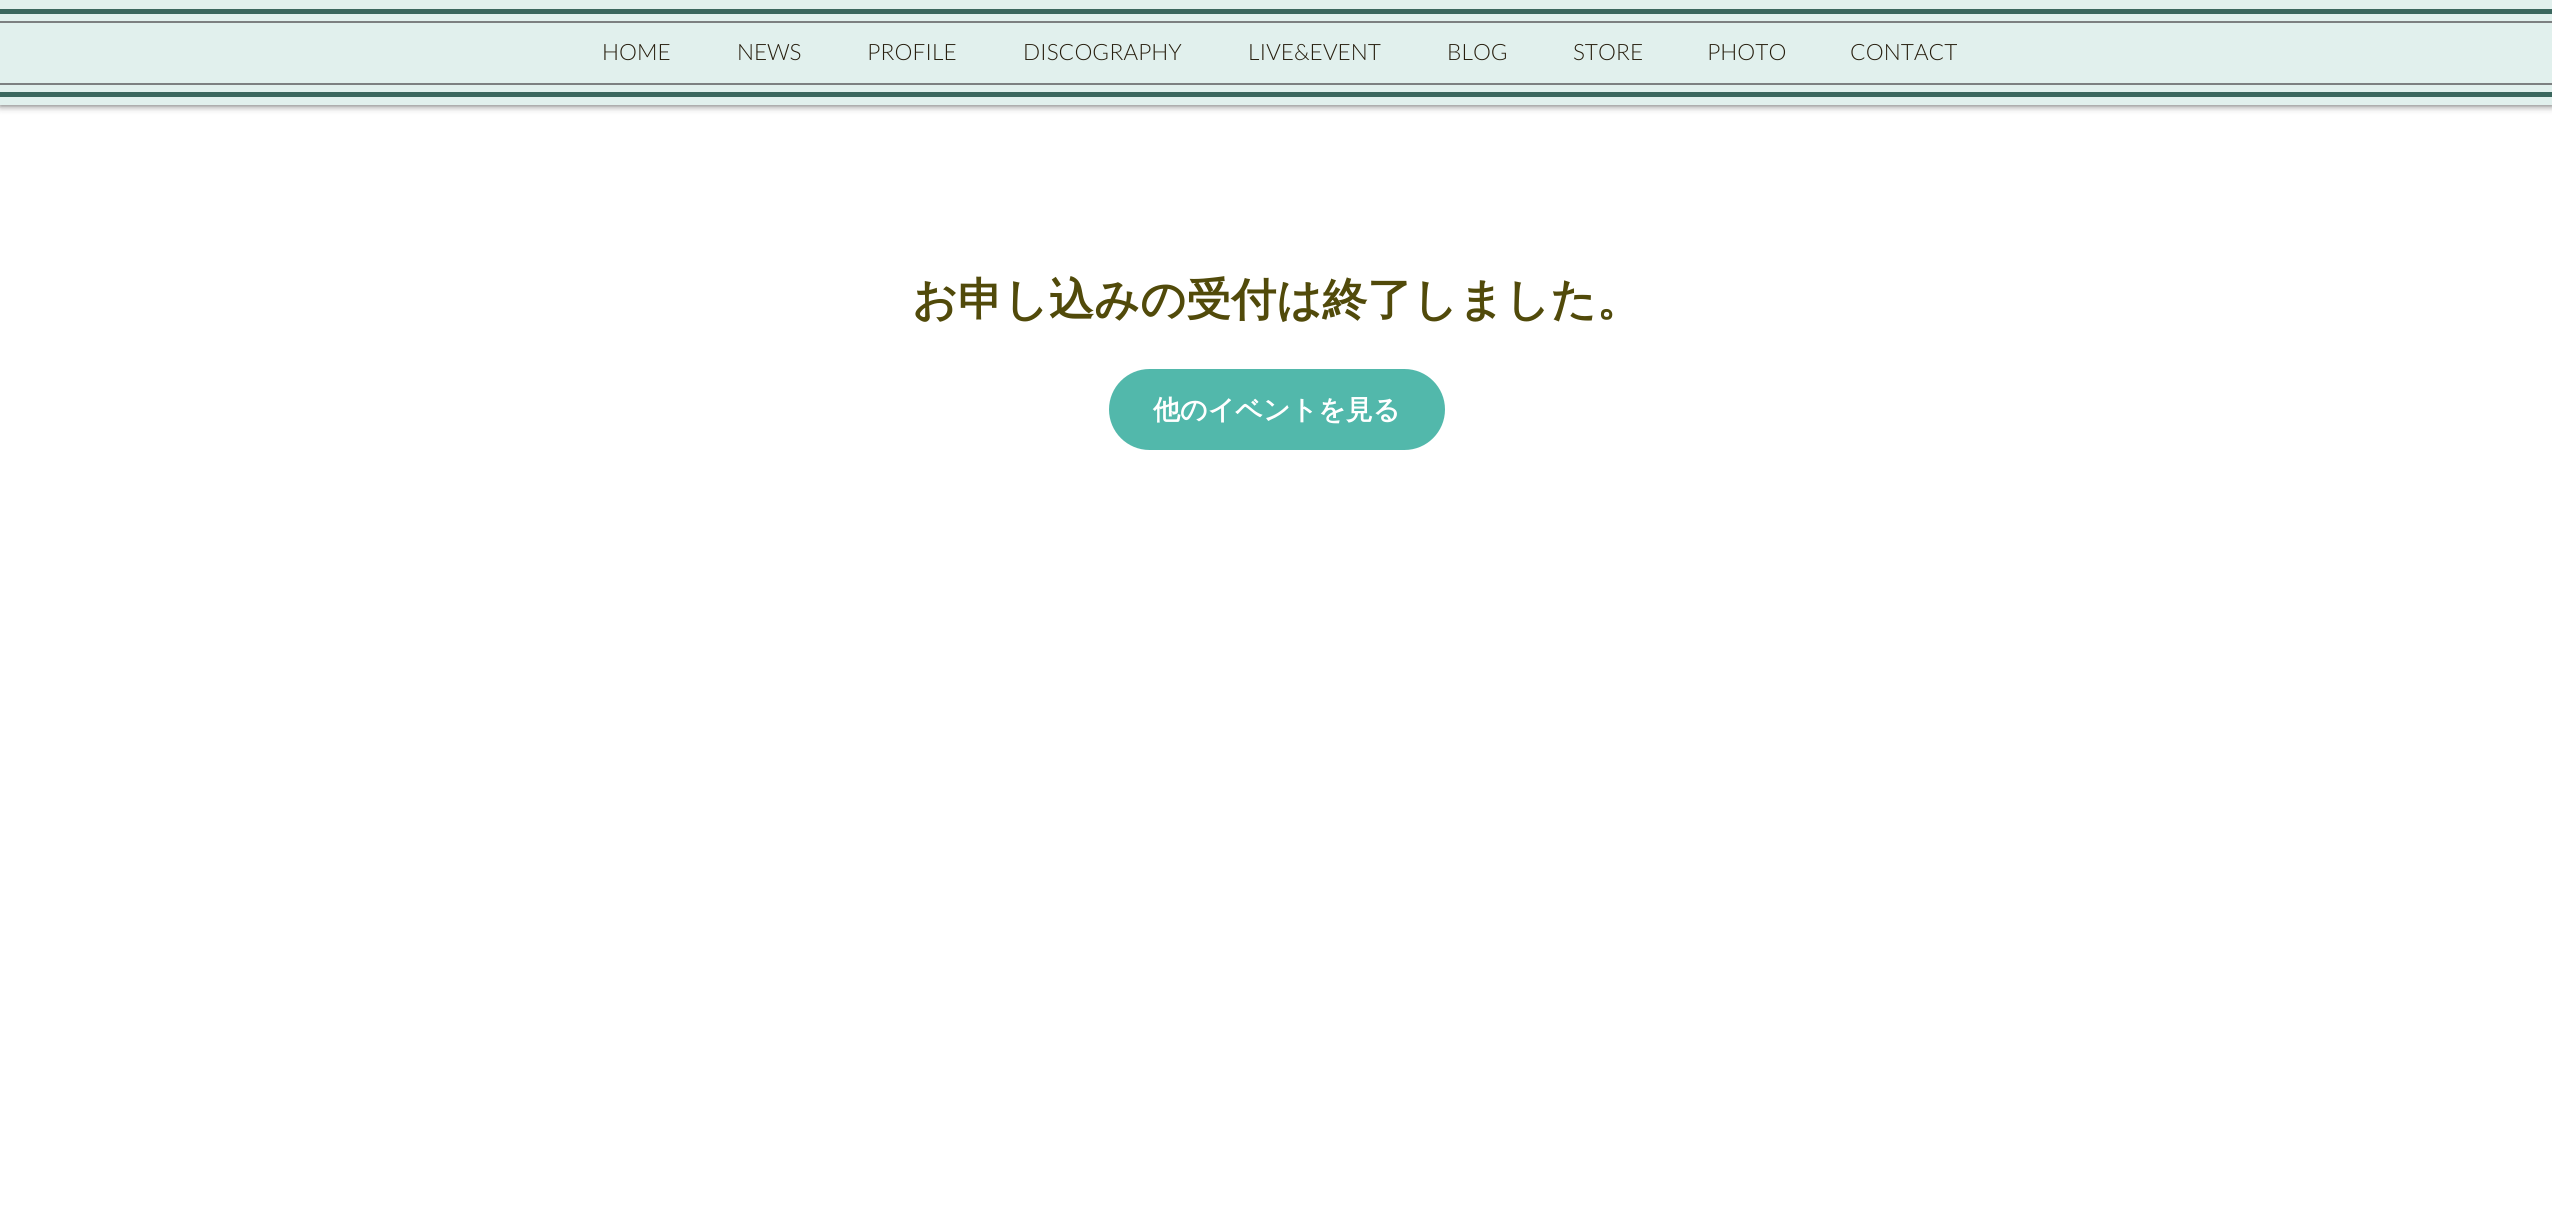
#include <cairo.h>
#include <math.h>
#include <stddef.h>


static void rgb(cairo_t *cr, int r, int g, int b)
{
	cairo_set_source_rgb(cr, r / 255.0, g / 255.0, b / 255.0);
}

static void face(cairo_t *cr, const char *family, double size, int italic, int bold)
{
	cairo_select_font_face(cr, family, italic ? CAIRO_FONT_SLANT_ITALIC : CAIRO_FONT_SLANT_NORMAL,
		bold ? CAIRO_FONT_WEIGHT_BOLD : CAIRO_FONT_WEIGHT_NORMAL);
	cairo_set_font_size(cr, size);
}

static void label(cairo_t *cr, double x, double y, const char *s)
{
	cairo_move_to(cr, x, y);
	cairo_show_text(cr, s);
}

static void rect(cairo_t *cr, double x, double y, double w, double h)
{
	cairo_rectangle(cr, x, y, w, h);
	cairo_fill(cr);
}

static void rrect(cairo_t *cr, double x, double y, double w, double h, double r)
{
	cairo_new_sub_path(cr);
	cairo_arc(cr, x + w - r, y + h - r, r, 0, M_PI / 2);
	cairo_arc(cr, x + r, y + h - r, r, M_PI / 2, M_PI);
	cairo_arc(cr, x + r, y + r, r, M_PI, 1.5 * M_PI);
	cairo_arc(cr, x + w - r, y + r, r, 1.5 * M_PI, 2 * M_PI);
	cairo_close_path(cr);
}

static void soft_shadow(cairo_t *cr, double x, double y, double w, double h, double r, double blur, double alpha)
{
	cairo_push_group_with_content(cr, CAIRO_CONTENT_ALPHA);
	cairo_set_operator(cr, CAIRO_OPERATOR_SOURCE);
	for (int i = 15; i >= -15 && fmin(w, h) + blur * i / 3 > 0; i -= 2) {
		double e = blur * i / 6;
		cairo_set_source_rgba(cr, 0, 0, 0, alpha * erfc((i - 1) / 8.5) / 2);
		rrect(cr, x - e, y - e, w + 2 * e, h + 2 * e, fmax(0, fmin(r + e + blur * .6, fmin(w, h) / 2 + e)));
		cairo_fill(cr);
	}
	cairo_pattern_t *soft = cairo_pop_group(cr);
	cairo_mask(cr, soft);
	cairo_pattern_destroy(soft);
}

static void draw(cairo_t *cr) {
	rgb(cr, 255, 255, 255);
	cairo_paint(cr);
	rgb(cr, 0, 0, 0);
	soft_shadow(cr, 0, 0, 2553, 105, 0, 4, 0.7);
	rgb(cr, 225, 240, 237);
	rect(cr, 0, 0, 2552, 105);
	rgb(cr, 59, 103, 94);
	rect(cr, 0, 9, 2552, 5);
	rect(cr, 0, 92, 2552, 5);
	rgb(cr, 125, 128, 129);
	rect(cr, 0, 21, 2552, 2);
	rect(cr, 0, 83, 2552, 2);
	face(cr, "Lato Light", 22.5, 0, 0);
	rgb(cr, 39, 30, 14);
	label(cr, 602, 60, "HOME");
	label(cr, 737, 60, "NEWS");
	label(cr, 867, 60, "PROFILE");
	label(cr, 1023, 60, "DISCOGRAPHY");
	label(cr, 1248, 60, "LIVE&EVENT");
	label(cr, 1447, 60, "BLOG");
	label(cr, 1573, 60, "STORE");
	label(cr, 1707, 60, "PHOTO");
	label(cr, 1850, 60, "CONTACT");
	face(cr, "WenQuanYi Zen Hei", 45, 0, 1);
	rgb(cr, 81, 74, 10);
	label(cr, 912, 315, "お申し込みの受付は終了しました。");
	rgb(cr, 82, 184, 171);
	rrect(cr, 1109, 369, 336, 81, 40.5);
	cairo_fill(cr);
	face(cr, "WenQuanYi Zen Hei", 27, 0, 1);
	rgb(cr, 255, 255, 255);
	label(cr, 1153, 419, "他のイベントを見る");
}

int main(void) {
	cairo_surface_t *surface = cairo_image_surface_create(CAIRO_FORMAT_RGB24, 2552, 1230);
	cairo_t *cr = cairo_create(surface);
	cairo_font_options_t *options = cairo_font_options_create();
	cairo_font_options_set_hint_metrics(options, CAIRO_HINT_METRICS_OFF);
	cairo_font_options_set_hint_style(options, CAIRO_HINT_STYLE_NONE);
	cairo_set_font_options(cr, options);
	cairo_set_miter_limit(cr, 4);
	draw(cr);
	cairo_surface_write_to_png(surface, "render.png");
	cairo_font_options_destroy(options);
	cairo_destroy(cr);
	cairo_surface_destroy(surface);
	return 0;
}
